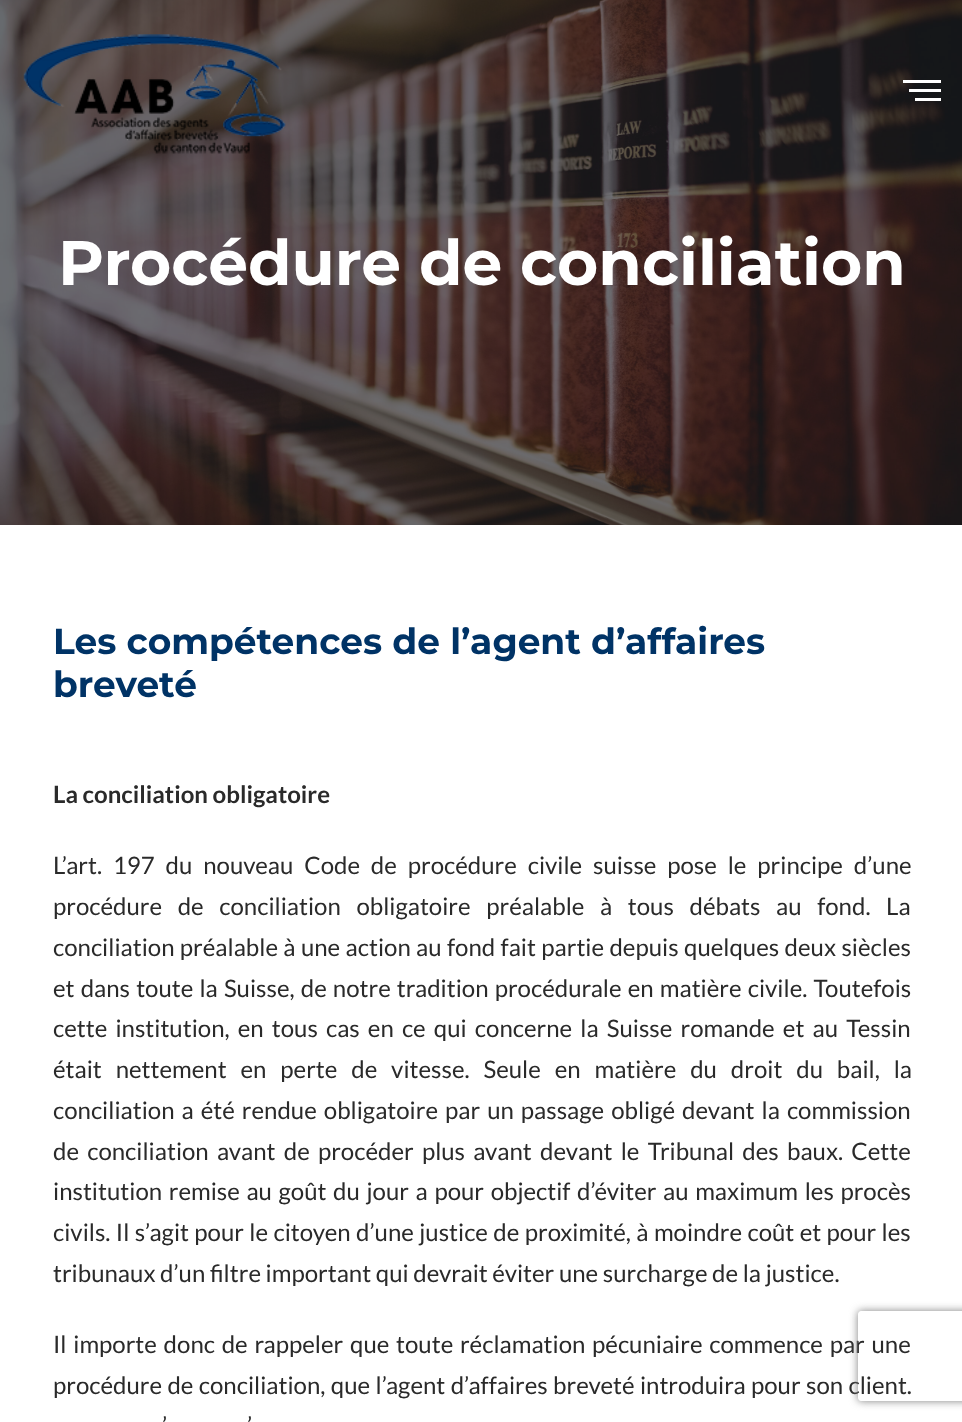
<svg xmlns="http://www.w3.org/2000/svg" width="962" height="1422">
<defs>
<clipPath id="clip1"><path d="M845 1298h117v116h-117zm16 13h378c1.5 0 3 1.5 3 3v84c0 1.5-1.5 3-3 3h-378c-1.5 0-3-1.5-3-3v-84c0-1.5 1.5-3 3-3z" clip-rule="evenodd"/></clipPath>
</defs>
<rect width="100%" height="100%" fill="#fff"/>
<image x="0" y="0" width="962" height="525" href="media/2.png"/>
<image x="23" y="34" width="263" height="120" href="media/1.png"/>
<rect x="903" y="80" width="38" height="3" fill="#fff"/>
<rect x="909" y="89" width="32" height="3" fill="#fff"/>
<rect x="915" y="98" width="26" height="3" fill="#fff"/>
<text x="58" y="285" style="font-family:Montserrat;font-size:63px;font-weight:bold;fill:#fff">Procédure de conciliation</text>
<text x="53" y="654" style="font-family:Montserrat;font-size:36px;font-weight:bold;fill:#036">Les compétences de l’agent d’affaires</text>
<text x="53" y="697" style="font-family:Montserrat;font-size:36px;font-weight:bold;fill:#036">breveté</text>
<text x="53" y="803" style="font-family:Lato;font-size:24px;font-weight:bold;fill:#2a2a2a">La conciliation obligatoire</text>
<text x="53" y="874" word-spacing="6.25" style="font-family:Lato;font-size:24px;fill:#2a2a2a">L’art. 197 du nouveau Code de procédure civile suisse pose le principe d’une</text>
<text x="53" y="915" word-spacing="11" style="font-family:Lato;font-size:24px;fill:#2a2a2a">procédure de conciliation obligatoire préalable à tous débats au fond. La</text>
<text x="53" y="956" word-spacing="0.75" style="font-family:Lato;font-size:24px;fill:#2a2a2a">conciliation préalable à une action au fond fait partie depuis quelques deux siècles</text>
<text x="53" y="997" word-spacing="1.5" style="font-family:Lato;font-size:24px;fill:#2a2a2a">et dans toute la Suisse, de notre tradition procédurale en matière civile. Toutefois</text>
<text x="53" y="1037" word-spacing="3.5" style="font-family:Lato;font-size:24px;fill:#2a2a2a">cette institution, en tous cas en ce qui concerne la Suisse romande et au Tessin</text>
<text x="53" y="1078" word-spacing="9.25" style="font-family:Lato;font-size:24px;fill:#2a2a2a">était nettement en perte de vitesse. Seule en matière du droit du bail, la</text>
<text x="53" y="1119" word-spacing="2.4" style="font-family:Lato;font-size:24px;fill:#2a2a2a">conciliation a été rendue obligatoire par un passage obligé devant la commission</text>
<text x="53" y="1160" word-spacing="3.6" style="font-family:Lato;font-size:24px;fill:#2a2a2a">de conciliation avant de procéder plus avant devant le Tribunal des baux. Cette</text>
<text x="53" y="1200" word-spacing="2" style="font-family:Lato;font-size:24px;fill:#2a2a2a">institution remise au goût du jour a pour objectif d’éviter au maximum les procès</text>
<text x="53" y="1241" word-spacing="0.75" style="font-family:Lato;font-size:24px;fill:#2a2a2a">civils. Il s’agit pour le citoyen d’une justice de proximité, à moindre coût et pour les</text>
<text x="53" y="1282" style="font-family:Lato;font-size:24px;fill:#2a2a2a">tribunaux d’un filtre important qui devrait éviter une surcharge de la justice.</text>
<text x="53" y="1353" word-spacing="2.1" style="font-family:Lato;font-size:24px;fill:#2a2a2a">Il importe donc de rappeler que toute réclamation pécuniaire commence par une</text>
<text x="53" y="1394" word-spacing="0.75" style="font-family:Lato;font-size:24px;fill:#2a2a2a">procédure de conciliation, que l’agent d’affaires breveté introduira pour son client.</text>
<text x="162" y="1434" word-spacing="4" style="font-family:Lato;font-size:24px;fill:#2a2a2a">’</text>
<text x="247" y="1434" word-spacing="4" style="font-family:Lato;font-size:24px;fill:#2a2a2a">’</text>
<g clip-path="url(#clip1)">
<rect x="858" y="1311" width="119" height="90" rx="3" fill="#808080" filter="blur(4px)"/>
</g>
</svg>
